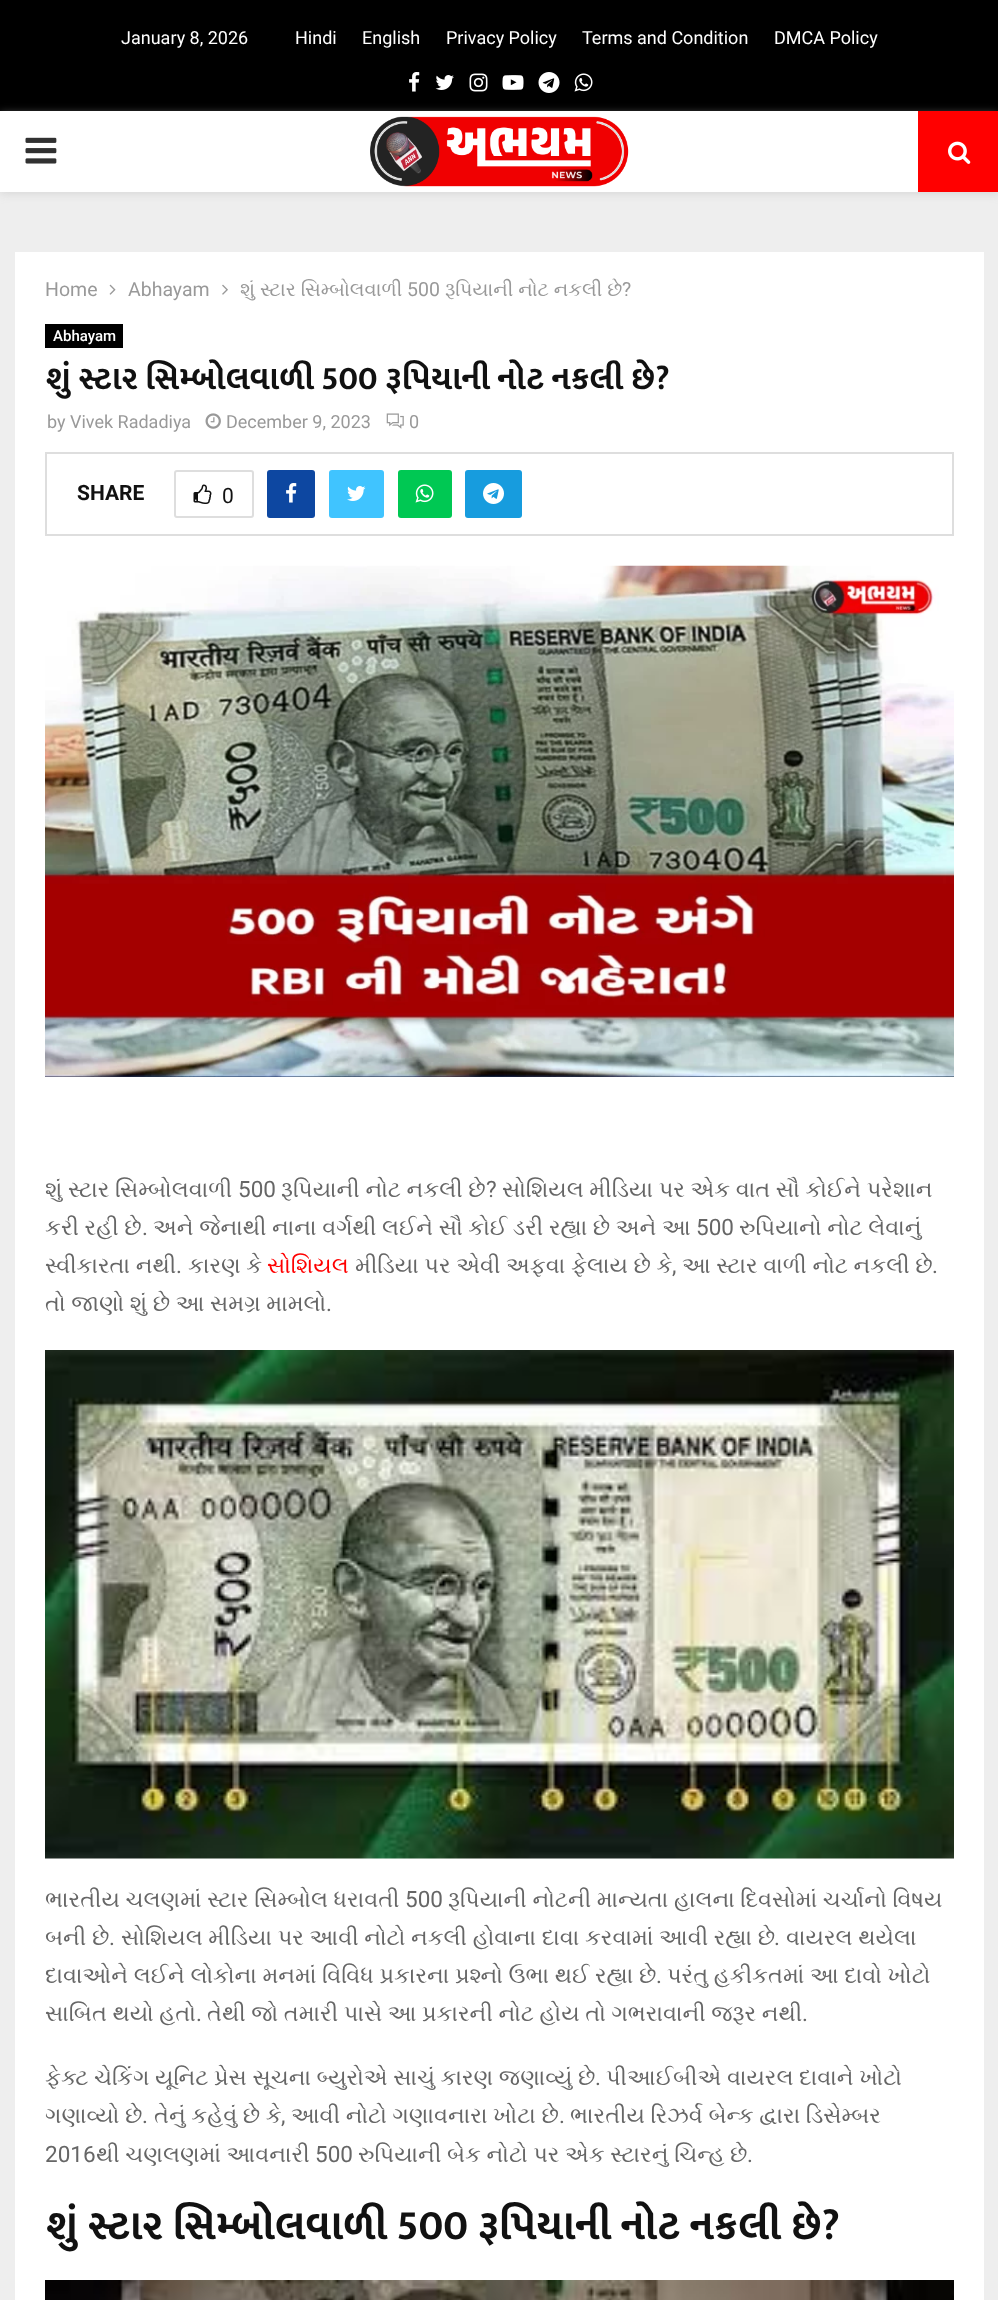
<svg xmlns="http://www.w3.org/2000/svg" width="998" height="2300">
<rect width="100%" height="100%" fill="#eee"/>
<rect width="998" height="111" fill="#000"/>
<text x="121" y="44" style="font-family:Roboto;font-size:18px;fill:#fff">January 8, 2026</text>
<text x="295" y="44" style="font-family:Roboto;font-size:18px;fill:#fff">Hindi</text>
<text x="362" y="44" style="font-family:Roboto;font-size:18px;fill:#fff">English</text>
<text x="446" y="44" style="font-family:Roboto;font-size:18px;fill:#fff">Privacy Policy</text>
<text x="582" y="44" style="font-family:Roboto;font-size:18px;fill:#fff">Terms and Condition</text>
<text x="774" y="44" style="font-family:Roboto;font-size:18px;fill:#fff">DMCA Policy</text>
<image x="409" y="72" width="11" height="20" href="media/1.png"/>
<image x="435" y="75" width="19" height="15" href="media/2.png"/>
<image x="469" y="73" width="19" height="19" href="media/3.png"/>
<image x="502" y="75" width="22" height="15" href="media/4.png"/>
<image x="538" y="72" width="22" height="21" href="media/5.png"/>
<image x="574" y="73" width="19" height="19" href="media/6.png"/>
<rect y="113" width="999" height="81" fill="#bebebe75" filter="blur(4px)"/>
<rect y="111" width="918" height="81" fill="#fff"/>
<image x="25" y="137" width="32" height="27" href="media/7.png"/>
<image x="370" y="116" width="259" height="71" href="media/8.png"/>
<rect x="918" y="111" width="80" height="81" fill="#f00"/>
<image x="948" y="141" width="23" height="23" href="media/9.png"/>
<rect x="15" y="252" width="969" height="2048" fill="#fff"/>
<text x="45" y="296" style="font-family:Roboto;font-size:19.5px;fill:#999">Home</text>
<image x="109" y="284" width="7" height="11" href="media/10.png"/>
<text x="128" y="296" style="font-family:Roboto;font-size:19.5px;fill:#999">Abhayam</text>
<image x="222" y="284" width="6" height="11" href="media/11.png"/>
<text x="240" y="296" style="font-family:FreeSerif;font-size:19.5px;fill:#999">શું સ્ટાર સિમ્બોલવાળી</text>
<text x="407" y="296" style="font-family:Roboto;font-size:19.5px;fill:#999">500</text>
<text x="445" y="296" style="font-family:FreeSerif;font-size:19.5px;fill:#999">રૂપિયાની નોટ નકલી છે</text>
<text x="622" y="296" style="font-family:Roboto;font-size:19.5px;fill:#999">?</text>
<rect x="45" y="324" width="78" height="24" fill="#000"/>
<text x="53" y="341" style="font-family:Roboto;font-size:15px;font-weight:500;fill:#fff">Abhayam</text>
<text x="45" y="389" style="font-family:Mukta Vaani;font-size:33px;font-weight:bold;fill:#111">શું સ્ટાર સિમ્બોલવાળી 500 રૂપિયાની નોટ નકલી છે?</text>
<text x="47" y="428" style="font-family:Roboto;font-size:18px;fill:#999">by Vivek Radadiya</text>
<image x="205" y="413" width="16" height="16" href="media/12.png"/>
<text x="226" y="428" style="font-family:Roboto;font-size:18px;fill:#999">December 9, 2023</text>
<image x="386" y="413" width="18" height="16" href="media/13.png"/>
<text x="409" y="428" style="font-family:Roboto;font-size:18px;fill:#999">0</text>
<rect x="46" y="453" width="907" height="82" fill="none" stroke="#dedede" stroke-width="2"/>
<text x="77" y="500" style="font-family:Roboto;font-size:21px;font-weight:bold;fill:#111">SHARE</text>
<rect x="175" y="471" width="78" height="46" rx="2" fill="none" stroke="#dedede" stroke-width="2"/>
<image x="193" y="484" width="19" height="20" href="media/14.png"/>
<text x="222" y="503" style="font-family:Roboto;font-size:21px;fill:#111">0</text>
<rect x="267" y="470" width="48" height="48" rx="3" fill="#0d47a1"/>
<image x="286" y="483" width="11" height="20" href="media/15.png"/>
<rect x="329" y="470" width="55" height="48" rx="3" fill="#40c4ff"/>
<image x="347" y="486" width="19" height="15" href="media/16.png"/>
<rect x="398" y="470" width="54" height="48" rx="3" fill="#00c853"/>
<image x="415" y="484" width="19" height="19" href="media/17.png"/>
<rect x="465" y="470" width="57" height="48" rx="3" fill="#179cde"/>
<image x="483" y="483" width="21" height="21" href="media/18.png"/>
<image x="45" y="565" width="909" height="512" href="media/19.png"/>
<text x="45" y="1197" style="font-family:FreeSerif;font-size:22.5px;fill:#666">શું સ્ટાર સિમ્બોલવાળી</text>
<text x="238" y="1197" style="font-family:Roboto;font-size:22.5px;fill:#666">500</text>
<text x="281" y="1197" style="font-family:FreeSerif;font-size:22.5px;fill:#666">રૂપિયાની નોટ નકલી છે</text>
<text x="486" y="1197" style="font-family:Roboto;font-size:22.5px;fill:#666">?</text>
<text x="502" y="1197" style="font-family:FreeSerif;font-size:22.5px;fill:#666">સોશિયલ મીડિયા પર એક વાત સૌ કોઈને પરેશાન</text>
<text x="45" y="1235" style="font-family:FreeSerif;font-size:22.5px;fill:#666">કરી રહી છે</text>
<text x="142" y="1235" style="font-family:Roboto;font-size:22.5px;fill:#666">.</text>
<text x="153" y="1235" style="font-family:FreeSerif;font-size:22.5px;fill:#666">અને જેનાથી નાના વર્ગથી લઈને સૌ કોઈ ડરી રહ્યા છે અને આ</text>
<text x="696" y="1235" style="font-family:Roboto;font-size:22.5px;fill:#666">500</text>
<text x="739" y="1235" style="font-family:FreeSerif;font-size:22.5px;fill:#666">રુપિયાનો નોટ લેવાનું</text>
<text x="45" y="1273" style="font-family:FreeSerif;font-size:22.5px;fill:#666">સ્વીકારતા નથી</text>
<text x="176" y="1273" style="font-family:Roboto;font-size:22.5px;fill:#666">.</text>
<text x="188" y="1273" style="font-family:FreeSerif;font-size:22.5px;fill:#666">કારણ કે</text>
<text x="267" y="1273" style="font-family:FreeSerif;font-size:22.5px;fill:#f00">સોશિયલ</text>
<text x="355" y="1273" style="font-family:FreeSerif;font-size:22.5px;fill:#666">મીડિયા પર એવી અફવા ફેલાય છે કે</text>
<text x="672" y="1273" style="font-family:Roboto;font-size:22.5px;fill:#666">,</text>
<text x="682" y="1273" style="font-family:FreeSerif;font-size:22.5px;fill:#666">આ સ્ટાર વાળી નોટ નકલી છે</text>
<text x="932" y="1273" style="font-family:Roboto;font-size:22.5px;fill:#666">.</text>
<text x="45" y="1311" style="font-family:FreeSerif;font-size:22.5px;fill:#666">તો જાણો શું છે આ સમગ્ર મામલો</text>
<text x="326" y="1311" style="font-family:Roboto;font-size:22.5px;fill:#666">.</text>
<image x="45" y="1350" width="909" height="509" href="media/20.png"/>
<text x="45" y="1907" style="font-family:FreeSerif;font-size:22.5px;fill:#666">ભારતીય ચલણમાં સ્ટાર સિમ્બોલ ધરાવતી</text>
<text x="405" y="1907" style="font-family:Roboto;font-size:22.5px;fill:#666">500</text>
<text x="448" y="1907" style="font-family:FreeSerif;font-size:22.5px;fill:#666">રૂપિયાની નોટની માન્યતા હાલના દિવસોમાં ચર્ચાનો વિષય</text>
<text x="45" y="1945" style="font-family:FreeSerif;font-size:22.5px;fill:#666">બની છે</text>
<text x="109" y="1945" style="font-family:Roboto;font-size:22.5px;fill:#666">.</text>
<text x="121" y="1945" style="font-family:FreeSerif;font-size:22.5px;fill:#666">સોશિયલ મીડિયા પર આવી નોટો નકલી હોવાના દાવા કરવામાં આવી રહ્યા છે</text>
<text x="774" y="1945" style="font-family:Roboto;font-size:22.5px;fill:#666">.</text>
<text x="786" y="1945" style="font-family:FreeSerif;font-size:22.5px;fill:#666">વાયરલ થયેલા</text>
<text x="45" y="1983" style="font-family:FreeSerif;font-size:22.5px;fill:#666">દાવાઓને લઈને લોકોના મનમાં વિવિધ પ્રકારના પ્રશ્નો ઉભા થઈ રહ્યા છે</text>
<text x="656" y="1983" style="font-family:Roboto;font-size:22.5px;fill:#666">.</text>
<text x="667" y="1983" style="font-family:FreeSerif;font-size:22.5px;fill:#666">પરંતુ હકીકતમાં આ દાવો ખોટો</text>
<text x="45" y="2021" style="font-family:FreeSerif;font-size:22.5px;fill:#666">સાબિત થયો હતો</text>
<text x="196" y="2021" style="font-family:Roboto;font-size:22.5px;fill:#666">.</text>
<text x="207" y="2021" style="font-family:FreeSerif;font-size:22.5px;fill:#666">તેથી જો તમારી પાસે આ પ્રકારની નોટ હોય તો ગભરાવાની જરૂર નથી</text>
<text x="802" y="2021" style="font-family:Roboto;font-size:22.5px;fill:#666">.</text>
<text x="45" y="2085" style="font-family:FreeSerif;font-size:22.5px;fill:#666">ફેક્ટ ચેકિંગ યૂનિટ પ્રેસ સૂચના બ્યુરોએ સાચું કારણ જણાવ્યું છે</text>
<text x="595" y="2085" style="font-family:Roboto;font-size:22.5px;fill:#666">.</text>
<text x="606" y="2085" style="font-family:FreeSerif;font-size:22.5px;fill:#666">પીઆઈબીએ વાયરલ દાવાને ખોટો</text>
<text x="45" y="2123" style="font-family:FreeSerif;font-size:22.5px;fill:#666">ગણાવ્યો છે</text>
<text x="142" y="2123" style="font-family:Roboto;font-size:22.5px;fill:#666">.</text>
<text x="154" y="2123" style="font-family:FreeSerif;font-size:22.5px;fill:#666">તેનું કહેવું છે કે</text>
<text x="291" y="2123" style="font-family:FreeSerif;font-size:22.5px;fill:#666">આવી નોટો ગણાવનારા ખોટા છે</text>
<text x="570" y="2123" style="font-family:FreeSerif;font-size:22.5px;fill:#666">ભારતીય રિઝર્વ બેન્ક દ્વારા ડિસેમ્બર</text>
<text x="281" y="2123" style="font-family:Roboto;font-size:22.5px;fill:#666">,</text>
<text x="559" y="2123" style="font-family:Roboto;font-size:22.5px;fill:#666">.</text>
<text x="45" y="2162" style="font-family:Roboto;font-size:22.5px;fill:#666">2016</text>
<text x="96" y="2162" style="font-family:FreeSerif;font-size:22.5px;fill:#666">થી ચણલણમાં આવનારી</text>
<text x="315" y="2162" style="font-family:Roboto;font-size:22.5px;fill:#666">500</text>
<text x="358" y="2162" style="font-family:FreeSerif;font-size:22.5px;fill:#666">રુપિયાની બેક નોટો પર એક સ્ટારનું ચિન્હ છે</text>
<text x="747" y="2162" style="font-family:Roboto;font-size:22.5px;fill:#666">.</text>
<text x="45" y="2239" style="font-family:Mukta Vaani;font-size:42px;font-weight:bold;fill:#111">શું સ્ટાર સિમ્બોલવાળી 500 રૂપિયાની નોટ નકલી છે?</text>
<image x="45" y="2280" width="909" height="20" href="media/21.png"/>
</svg>
